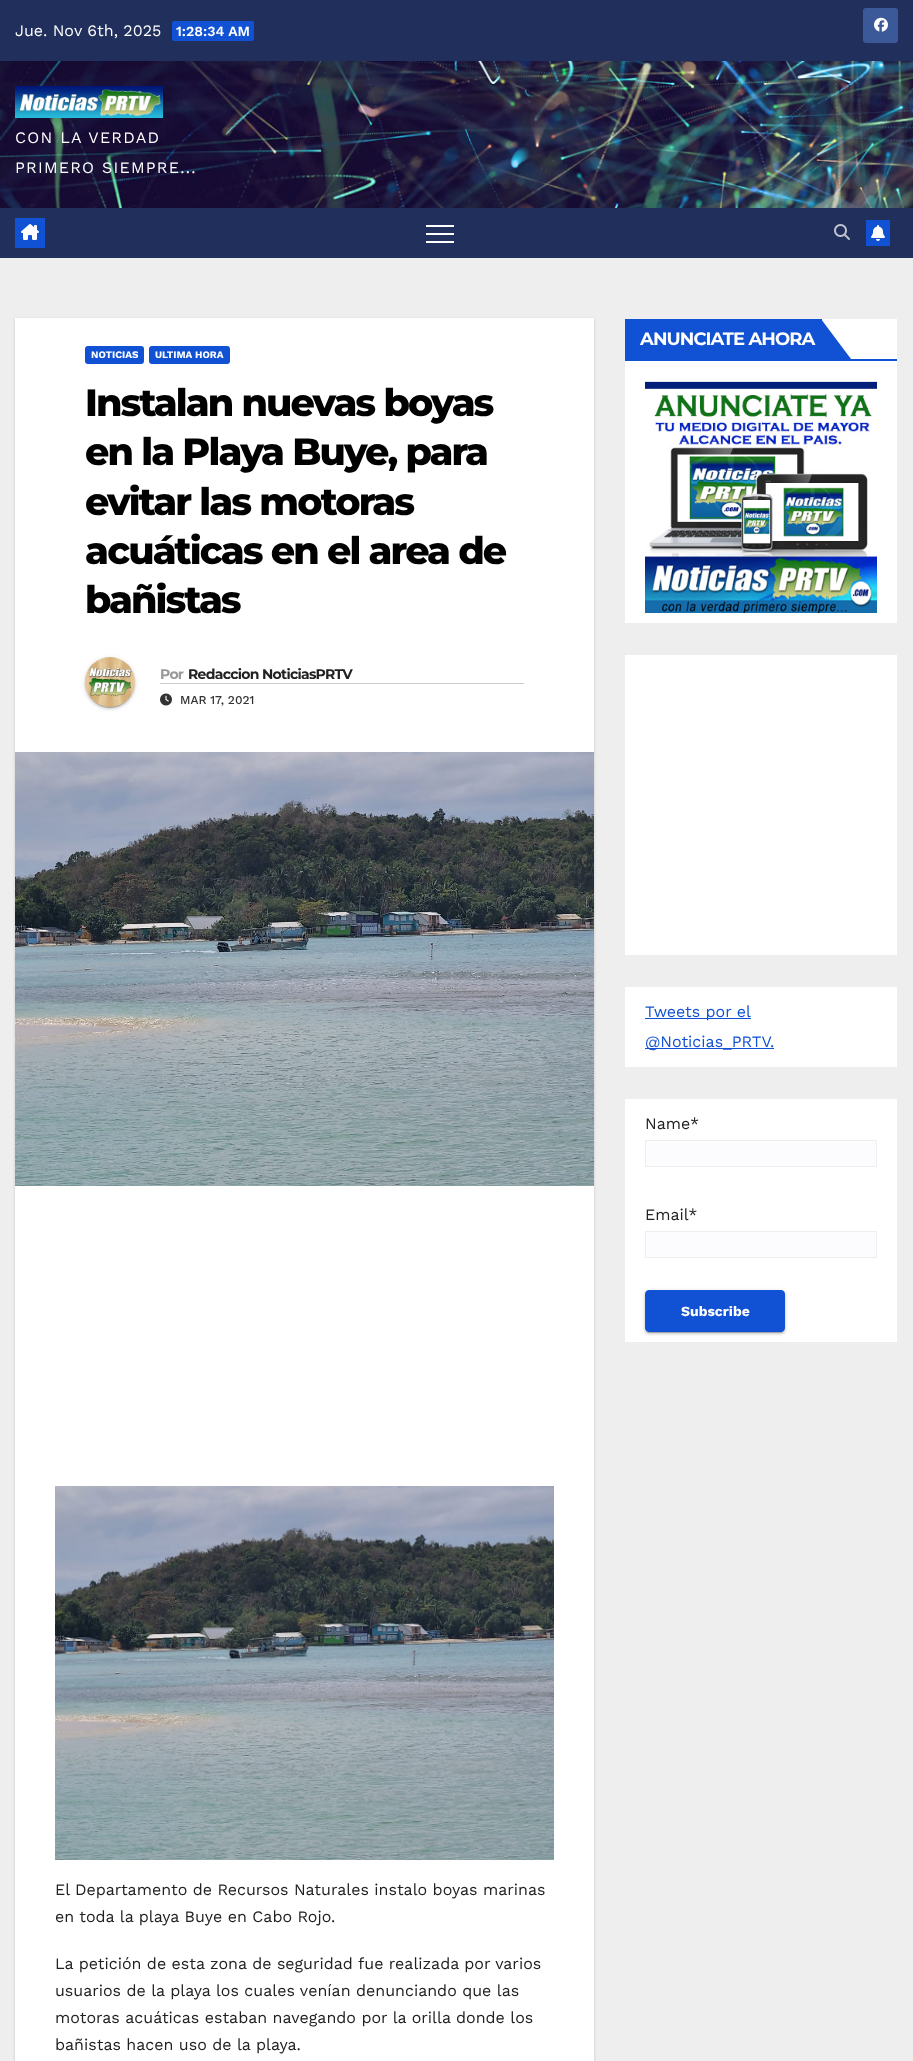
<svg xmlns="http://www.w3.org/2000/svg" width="913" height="2061">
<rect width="100%" height="100%" fill="#eee"/>
<rect width="913" height="61" fill="#202f5b"/>
<text x="15" y="36" style="font-family:Work Sans;font-size:16px;fill:#fff">Jue. Nov 6th, 2025</text>
<rect x="172" y="21" width="82" height="20" rx="2" fill="#1151d3"/>
<text x="176" y="36" style="font-family:Work Sans;font-size:14px;font-weight:600;fill:#fff">1:28:34 AM</text>
<rect x="863" y="8" width="35" height="35" rx="3" fill="#3b5998"/>
<image x="874" y="17" width="14" height="15" href="media/1.png"/>
<image x="0" y="61" width="913" height="147" href="media/2.png"/>
<image x="15" y="86" width="148" height="32" href="media/3.png"/>
<text x="15" y="143" style="font-family:Work Sans;font-size:16px;letter-spacing:1.25px;fill:#fff">CON LA VERDAD</text>
<text x="15" y="173" style="font-family:Work Sans;font-size:16px;letter-spacing:1.25px;fill:#fff">PRIMERO SIEMPRE...</text>
<rect y="208" width="913" height="50" fill="#202f5b"/>
<rect x="15" y="218" width="30" height="30" fill="#1151d3"/>
<image x="21" y="224" width="18" height="16" href="media/4.png"/>
<rect x="426" y="225" width="28" height="2" fill="#fff"/>
<rect x="426" y="233" width="28" height="2" fill="#fff"/>
<rect x="426" y="241" width="28" height="2" fill="#fff"/>
<image x="834" y="224" width="16" height="16" href="media/5.png"/>
<rect x="866" y="220" width="24" height="26" fill="#1151d3"/>
<image x="871" y="225" width="14" height="16" href="media/6.png"/>
<rect x="15" y="319" width="579" height="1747" fill="#00000026" filter="blur(1.5px)"/>
<rect x="15" y="318" width="579" height="1743" fill="#fff"/>
<rect x="85" y="346" width="59" height="18" rx="3" fill="#1151d3"/>
<text x="91" y="358" style="font-family:Work Sans;font-size:10px;font-weight:bold;fill:#fff">NOTICIAS</text>
<rect x="149" y="346" width="81" height="18" rx="3" fill="#1151d3"/>
<text x="155" y="358" style="font-family:Work Sans;font-size:10px;font-weight:bold;fill:#fff">ULTIMA HORA</text>
<text x="85" y="416" style="font-family:Montserrat;font-size:38px;font-weight:800;letter-spacing:-1.9px;fill:#000">Instalan nuevas boyas</text>
<text x="85" y="465" style="font-family:Montserrat;font-size:38px;font-weight:800;letter-spacing:-1.9px;fill:#000">en la Playa Buye, para</text>
<text x="85" y="515" style="font-family:Montserrat;font-size:38px;font-weight:800;letter-spacing:-1.9px;fill:#000">evitar las motoras</text>
<text x="85" y="564" style="font-family:Montserrat;font-size:38px;font-weight:800;letter-spacing:-1.9px;fill:#000">acuáticas en el area de</text>
<text x="85" y="613" style="font-family:Montserrat;font-size:38px;font-weight:800;letter-spacing:-1.9px;fill:#000">bañistas</text>
<rect x="85" y="658" width="50" height="50" rx="25" fill="#0000001f" filter="blur(2.5px)"/>
<rect x="87" y="662" width="46" height="46" rx="23" fill="#00000033" filter="blur(0.5px)"/>
<rect x="85" y="659" width="50" height="50" rx="25" fill="#00000024" filter="blur(1px)"/>
<image x="85" y="657" width="50" height="50" href="media/7.png"/>
<rect x="160" y="683" width="364" height="1" fill="#ccc"/>
<text x="160" y="679" style="font-family:Montserrat;font-size:14px;font-weight:bold;letter-spacing:-0.7px;fill:#999">Por</text>
<text x="188" y="679" style="font-family:Montserrat;font-size:14px;font-weight:bold;letter-spacing:-0.7px;fill:#212121">Redaccion NoticiasPRTV</text>
<image x="160" y="693" width="12" height="13" href="media/8.png"/>
<text x="180" y="704" style="font-family:Work Sans;font-size:12px;font-weight:500;fill:#333">MAR 17, 2021</text>
<image x="15" y="752" width="579" height="434" href="media/9.png"/>
<image x="55" y="1486" width="499" height="374" href="media/10.png"/>
<text x="55" y="1895" style="font-family:Work Sans;font-size:16px;fill:#212121">El Departamento de Recursos Naturales instalo boyas marinas</text>
<text x="55" y="1922" style="font-family:Work Sans;font-size:16px;fill:#212121">en toda la playa Buye en Cabo Rojo.</text>
<text x="55" y="1969" style="font-family:Work Sans;font-size:16px;fill:#212121">La petición de esta zona de seguridad</text>
<text x="358" y="1969" style="font-family:Work Sans;font-size:16px;fill:#212121">fue realizada por varios</text>
<text x="55" y="1996" style="font-family:Work Sans;font-size:16px;fill:#212121">usuarios de la playa los cuales venían denunciando que las</text>
<text x="55" y="2023" style="font-family:Work Sans;font-size:16px;fill:#212121">motoras acuáticas estaban navegando por la orilla donde los</text>
<text x="55" y="2050" style="font-family:Work Sans;font-size:16px;fill:#212121">bañistas hacen uso de la playa.</text>
<rect x="625" y="319" width="272" height="304" fill="#fff"/>
<rect x="625" y="359" width="272" height="2" fill="#1151d3"/>
<rect x="625" y="319" width="197" height="40" fill="#1151d3"/>
<text x="640" y="345" style="font-family:Montserrat;font-size:18px;font-weight:bold;letter-spacing:-0.9px;fill:#fff">ANUNCIATE AHORA</text>
<path d="M821 359v-40l30 40z" fill="#1151d3"/>
<image x="645" y="381" width="232" height="232" href="media/11.png"/>
<rect x="625" y="655" width="272" height="300" fill="#fff"/>
<rect x="625" y="987" width="272" height="80" fill="#fff"/>
<rect x="645" y="1018" width="106" height="1" fill="#1151d3"/>
<text x="645" y="1017" style="font-family:Work Sans;font-size:16px;fill:#1151d3">Tweets por el</text>
<rect x="645" y="1048" width="129" height="1" fill="#1151d3"/>
<text x="645" y="1047" style="font-family:Work Sans;font-size:16px;fill:#1151d3">@Noticias_PRTV.</text>
<rect x="625" y="1099" width="272" height="243" fill="#fff"/>
<text x="645" y="1129" style="font-family:Work Sans;font-size:16px;fill:#212121">Name*</text>
<rect x="645.5" y="1140.5" width="231" height="26" fill="#fcfcff" stroke="#eee"/>
<text x="645" y="1220" style="font-family:Work Sans;font-size:16px;fill:#212121">Email*</text>
<rect x="645.5" y="1231.5" width="231" height="26" fill="#fcfcff" stroke="#eee"/>
<rect x="645" y="1291" width="140" height="42" rx="4" fill="#0000001f" filter="blur(2.5px)"/>
<rect x="647" y="1295" width="136" height="38" rx="2" fill="#00000033" filter="blur(0.5px)"/>
<rect x="645" y="1292" width="140" height="42" rx="4" fill="#00000024" filter="blur(1px)"/>
<rect x="645.5" y="1290.5" width="139" height="41" rx="3.5" fill="#1151d3" stroke="#1151d3"/>
<text x="681" y="1316" style="font-family:Work Sans;font-size:14px;font-weight:bold;fill:#fff">Subscribe</text>
</svg>
